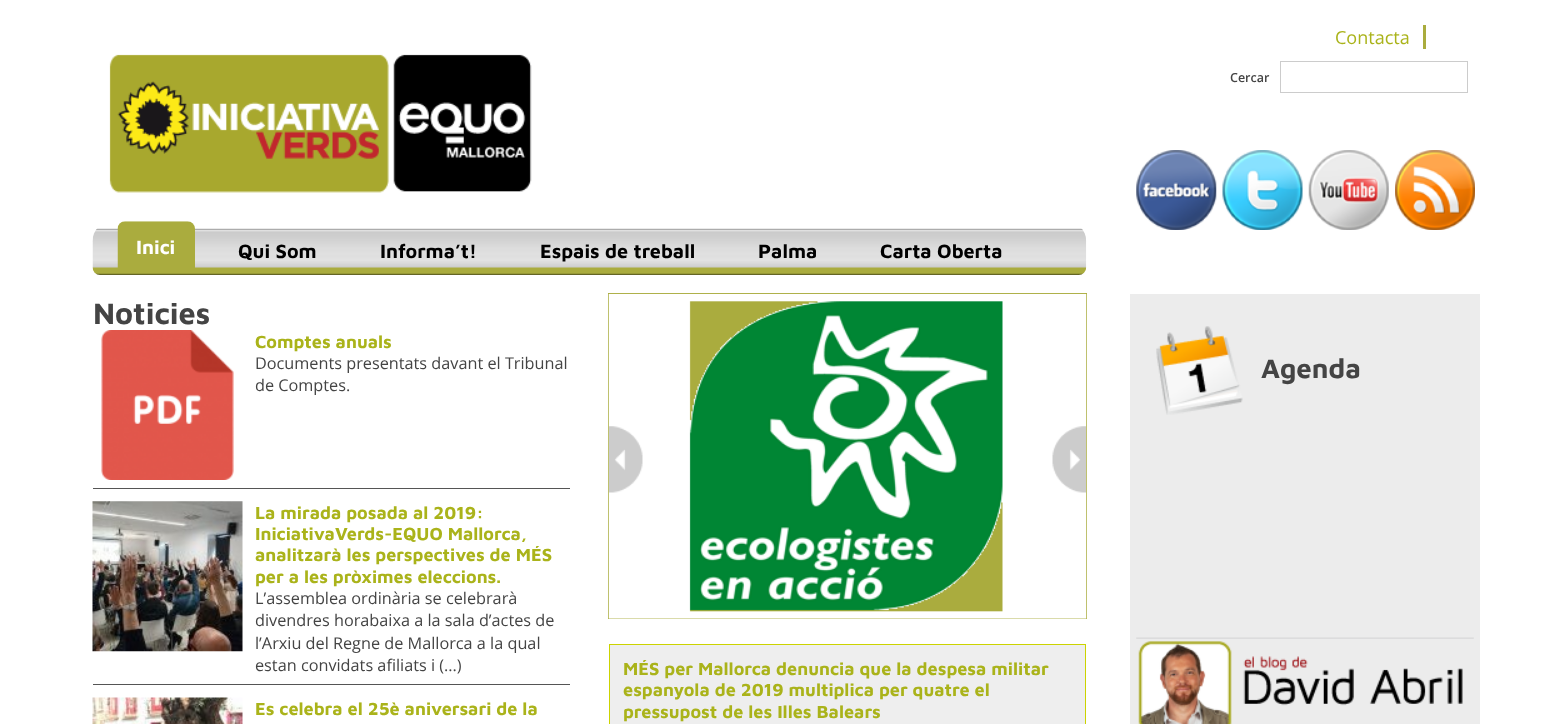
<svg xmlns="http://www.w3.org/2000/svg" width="1559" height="724">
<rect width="100%" height="100%" fill="#fff"/>
<rect x="1423" y="25" width="3" height="24" fill="#aaac3e"/>
<text x="1335" y="44" style="font-family:Open Sans;font-size:18.05px;fill:#aab31a">Contacta</text>
<image x="109" y="54" width="423" height="139" href="media/1.png"/>
<text x="1230" y="82" style="font-family:Open Sans;font-size:12.5px;font-weight:600;fill:#444">Cercar</text>
<rect x="1280.5" y="61.5" width="187" height="31" fill="none" stroke="#ccc"/>
<image x="1136" y="150" width="81" height="80" href="media/2.png"/>
<image x="1222" y="150" width="81" height="80" href="media/3.png"/>
<image x="1308" y="150" width="81" height="80" href="media/4.png"/>
<image x="1395" y="150" width="80" height="80" href="media/5.png"/>
<image x="92" y="228" width="995" height="47" href="media/6.png"/>
<image x="117" y="221" width="78" height="47" href="media/7.png"/>
<text x="136" y="254" style="font-family:Maven Pro;font-size:19.75px;font-weight:bold;fill:#fff">Inici</text>
<text x="238" y="258" style="font-family:Maven Pro;font-size:19.75px;font-weight:bold;fill:#000">Qui Som</text>
<text x="380" y="258" style="font-family:Maven Pro;font-size:19.75px;font-weight:bold;fill:#000">Informa’t!</text>
<text x="540" y="258" style="font-family:Maven Pro;font-size:19.75px;font-weight:bold;fill:#000">Espais de treball</text>
<text x="758" y="258" style="font-family:Maven Pro;font-size:19.75px;font-weight:bold;fill:#000">Palma</text>
<text x="880" y="258" style="font-family:Maven Pro;font-size:19.75px;font-weight:bold;fill:#000">Carta Oberta</text>
<text x="93" y="324" style="font-family:Maven Pro;font-size:30.5px;font-weight:bold;fill:#444">Noticies</text>
<rect x="93" y="488" width="477" height="1" fill="#555"/>
<image x="101" y="330" width="133" height="150" href="media/8.png"/>
<text x="255" y="348" style="font-family:Maven Pro;font-size:18.05px;font-weight:bold;fill:#aab31a">Comptes anuals</text>
<text x="255" y="369" style="font-family:Open Sans;font-size:16.25px;fill:#444">Documents presentats davant el Tribunal</text>
<text x="255" y="391" style="font-family:Open Sans;font-size:16.25px;fill:#444">de Comptes.</text>
<rect x="93" y="684" width="477" height="1" fill="#555"/>
<image x="92" y="501" width="151" height="151" href="media/9.png"/>
<text x="255" y="519" style="font-family:Maven Pro;font-size:18.05px;font-weight:bold;fill:#aab31a">La mirada posada al 2019:</text>
<text x="255" y="540" style="font-family:Maven Pro;font-size:18.05px;font-weight:bold;fill:#aab31a">IniciativaVerds-EQUO Mallorca,</text>
<text x="255" y="561" style="font-family:Maven Pro;font-size:18.05px;font-weight:bold;fill:#aab31a">analitzarà les perspectives de MÉS</text>
<text x="255" y="583" style="font-family:Maven Pro;font-size:18.05px;font-weight:bold;fill:#aab31a">per a les pròximes eleccions.</text>
<text x="255" y="604" style="font-family:Open Sans;font-size:16.25px;fill:#444">L’assemblea ordinària se celebrarà</text>
<text x="255" y="626" style="font-family:Open Sans;font-size:16.25px;fill:#444">divendres horabaixa a la sala d’actes de</text>
<text x="255" y="649" style="font-family:Open Sans;font-size:16.25px;fill:#444">l’Arxiu del Regne de Mallorca a la qual</text>
<text x="255" y="671" style="font-family:Open Sans;font-size:16.25px;fill:#444">estan convidats afiliats i (...)</text>
<image x="92" y="697" width="151" height="27" href="media/10.png"/>
<text x="255" y="715" style="font-family:Maven Pro;font-size:18.05px;font-weight:bold;fill:#aab31a">Es celebra el 25è aniversari de la</text>
<rect x="608" y="293" width="479" height="326" fill="#aaac3e"/>
<image x="608" y="293" width="479" height="326" href="media/11.png"/>
<image x="609" y="426" width="34" height="67" href="media/12.png"/>
<image x="1052" y="426" width="34" height="67" href="media/13.png"/>
<rect x="609.5" y="644.5" width="476" height="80" fill="#eee" stroke="#cbd300"/>
<text x="623" y="675" style="font-family:Maven Pro;font-size:18.05px;font-weight:bold;fill:#aab31a">MÉS per Mallorca denuncia que la despesa militar</text>
<text x="623" y="696" style="font-family:Maven Pro;font-size:18.05px;font-weight:bold;fill:#aab31a">espanyola de 2019 multiplica per quatre el</text>
<text x="623" y="718" style="font-family:Maven Pro;font-size:18.05px;font-weight:bold;fill:#aab31a">pressupost de les Illes Balears</text>
<rect x="1130" y="294" width="350" height="430" fill="#ececec"/>
<image x="1156" y="326" width="87" height="89" href="media/14.png"/>
<text x="1261" y="378" style="font-family:Maven Pro;font-size:27.5px;font-weight:bold;fill:#444">Agenda</text>
<image x="1136" y="637" width="338" height="87" href="media/15.png"/>
</svg>
